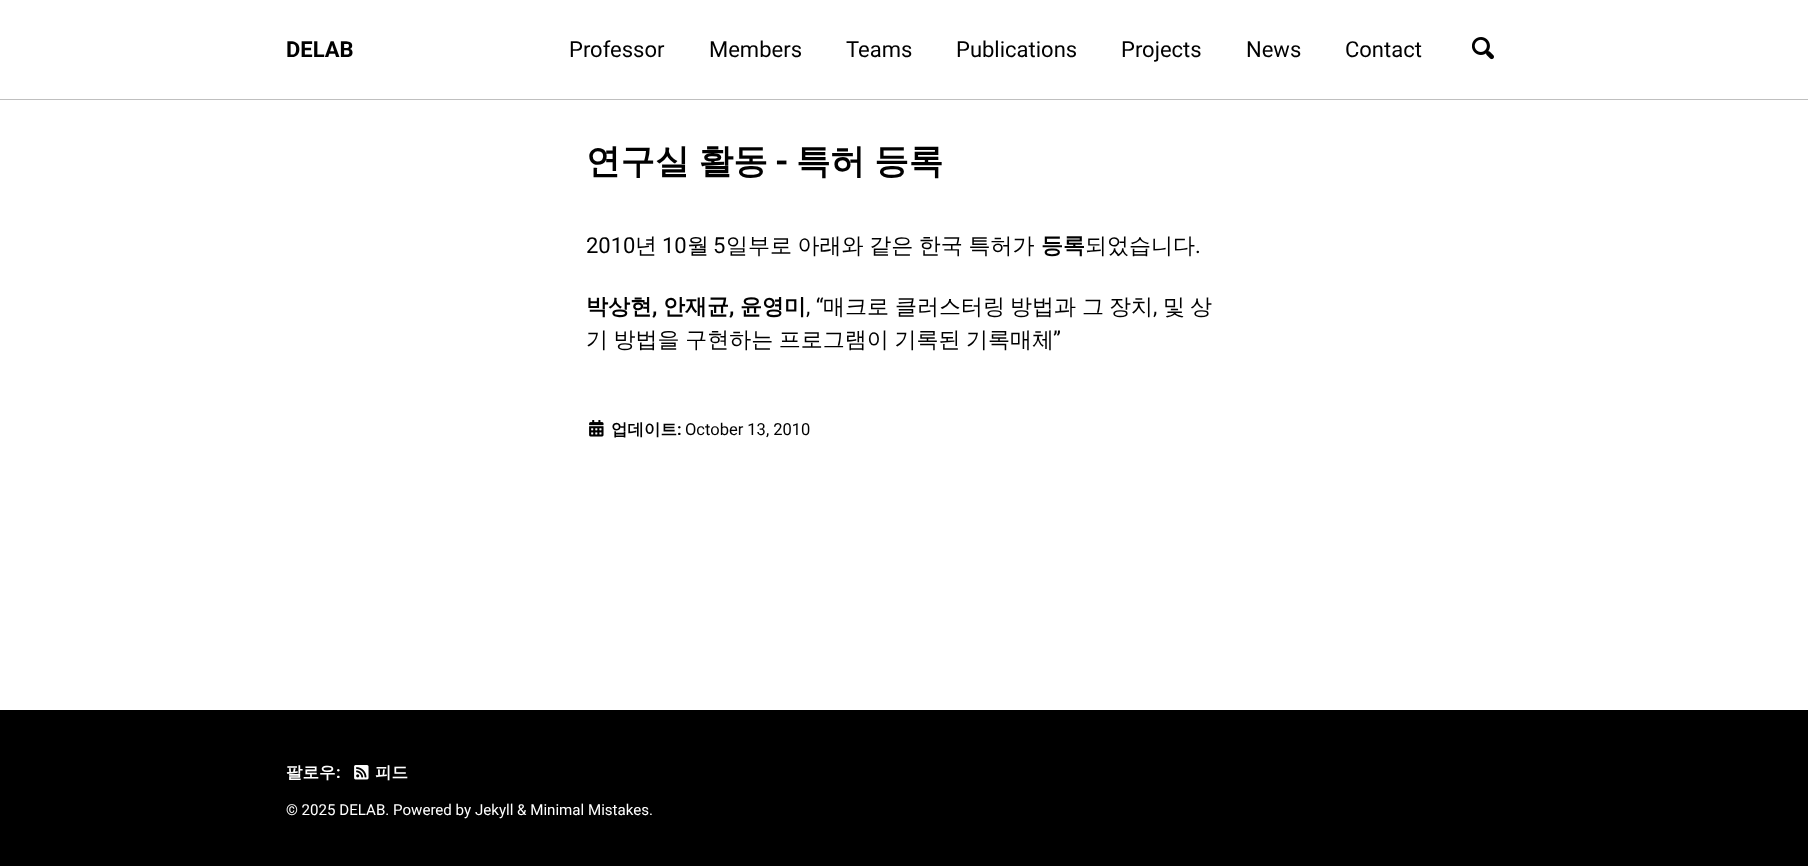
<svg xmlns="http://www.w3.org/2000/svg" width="1808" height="866">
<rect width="100%" height="100%" fill="#fff"/>
<rect y="99" width="1808" height="1" fill="#bfbfbf"/>
<text x="286" y="57" style="font-family:Roboto;font-size:22px;font-weight:bold;fill:#000">DELAB</text>
<text x="569" y="57" style="font-family:Roboto;font-size:22px;fill:#000">Professor</text>
<text x="709" y="57" style="font-family:Roboto;font-size:22px;fill:#000">Members</text>
<text x="846" y="57" style="font-family:Roboto;font-size:22px;fill:#000">Teams</text>
<text x="956" y="57" style="font-family:Roboto;font-size:22px;fill:#000">Publications</text>
<text x="1121" y="57" style="font-family:Roboto;font-size:22px;fill:#000">Projects</text>
<text x="1246" y="57" style="font-family:Roboto;font-size:22px;fill:#000">News</text>
<text x="1345" y="57" style="font-family:Roboto;font-size:22px;fill:#000">Contact</text>
<image x="1472" y="37" width="22" height="23" href="media/1.png"/>
<text x="586" y="173" word-spacing="-1" style="font-family:WenQuanYi Zen Hei;font-size:34.5px;font-weight:bold;fill:#000">연구실 활동</text>
<text x="775" y="173" style="font-family:Roboto;font-size:34.5px;font-weight:bold;fill:#000">-</text>
<text x="796" y="173" word-spacing="-1" style="font-family:WenQuanYi Zen Hei;font-size:34.5px;font-weight:bold;fill:#000">특허 등록</text>
<text x="586" y="253" style="font-family:Roboto;font-size:22px;fill:#000">2010</text>
<text x="635" y="253" style="font-family:WenQuanYi Zen Hei;font-size:22px;font-weight:500;fill:#000">년</text>
<text x="662" y="253" style="font-family:Roboto;font-size:22px;fill:#000">10</text>
<text x="687" y="253" style="font-family:WenQuanYi Zen Hei;font-size:22px;font-weight:500;fill:#000">월</text>
<text x="713" y="253" style="font-family:Roboto;font-size:22px;fill:#000">5</text>
<text x="726" y="253" word-spacing="-1" style="font-family:WenQuanYi Zen Hei;font-size:22px;font-weight:500;fill:#000">일부로 아래와 같은 한국 특허가</text>
<text x="1041" y="253" style="font-family:WenQuanYi Zen Hei;font-size:22px;font-weight:bold;fill:#000">등록</text>
<text x="1085" y="253" style="font-family:WenQuanYi Zen Hei;font-size:22px;font-weight:500;fill:#000">되었습니다</text>
<text x="1195" y="253" style="font-family:Roboto;font-size:22px;fill:#000">.</text>
<text x="586" y="314" style="font-family:WenQuanYi Zen Hei;font-size:22px;font-weight:bold;fill:#000">박상현</text>
<text x="652" y="314" style="font-family:Roboto;font-size:22px;font-weight:bold;fill:#000">,</text>
<text x="663" y="314" style="font-family:WenQuanYi Zen Hei;font-size:22px;font-weight:bold;fill:#000">안재균</text>
<text x="729" y="314" style="font-family:Roboto;font-size:22px;font-weight:bold;fill:#000">,</text>
<text x="740" y="314" style="font-family:WenQuanYi Zen Hei;font-size:22px;font-weight:bold;fill:#000">윤영미</text>
<text x="806" y="314" style="font-family:Roboto;font-size:22px;fill:#000">, “</text>
<text x="823" y="314" style="font-family:WenQuanYi Zen Hei;font-size:22px;font-weight:500;fill:#000">매크로</text>
<text x="895" y="314" style="font-family:WenQuanYi Zen Hei;font-size:22px;font-weight:500;fill:#000">클러스터링</text>
<text x="1010" y="314" style="font-family:WenQuanYi Zen Hei;font-size:22px;font-weight:500;fill:#000">방법과</text>
<text x="1082" y="314" style="font-family:WenQuanYi Zen Hei;font-size:22px;font-weight:500;fill:#000">그</text>
<text x="1109" y="314" style="font-family:WenQuanYi Zen Hei;font-size:22px;font-weight:500;fill:#000">장치</text>
<text x="1153" y="314" style="font-family:Roboto;font-size:22px;fill:#000">,</text>
<text x="1163" y="314" style="font-family:WenQuanYi Zen Hei;font-size:22px;font-weight:500;fill:#000">및</text>
<text x="1190" y="314" style="font-family:WenQuanYi Zen Hei;font-size:22px;font-weight:500;fill:#000">상</text>
<text x="586" y="347" word-spacing="-1" style="font-family:WenQuanYi Zen Hei;font-size:22px;font-weight:500;fill:#000">기 방법을 구현하는 프로그램이 기록된 기록매체</text>
<text x="1053" y="347" style="font-family:Roboto;font-size:22px;fill:#000">”</text>
<image x="589" y="420" width="15" height="17" href="media/2.png"/>
<text x="611" y="435" style="font-family:WenQuanYi Zen Hei;font-size:16.5px;font-weight:bold;fill:#000">업데이트</text>
<text x="677" y="435" style="font-family:Roboto;font-size:16.5px;font-weight:bold;fill:#000">:</text>
<text x="685" y="435" style="font-family:Roboto;font-size:16.5px;fill:#000">October 13, 2010</text>
<rect y="710" width="1808" height="156" fill="#000"/>
<text x="286" y="778" style="font-family:WenQuanYi Zen Hei;font-size:16.5px;font-weight:bold;fill:#fff">팔로우</text>
<text x="336" y="778" style="font-family:Roboto;font-size:16.5px;font-weight:bold;fill:#fff">:</text>
<image x="354" y="765" width="15" height="15" href="media/3.png"/>
<text x="375" y="778" style="font-family:WenQuanYi Zen Hei;font-size:16.5px;font-weight:bold;fill:#fff">피드</text>
<text x="286" y="815" style="font-family:Roboto;font-size:15.1px;fill:#fff">© 2025 DELAB. Powered by Jekyll &amp; Minimal Mistakes.</text>
</svg>
